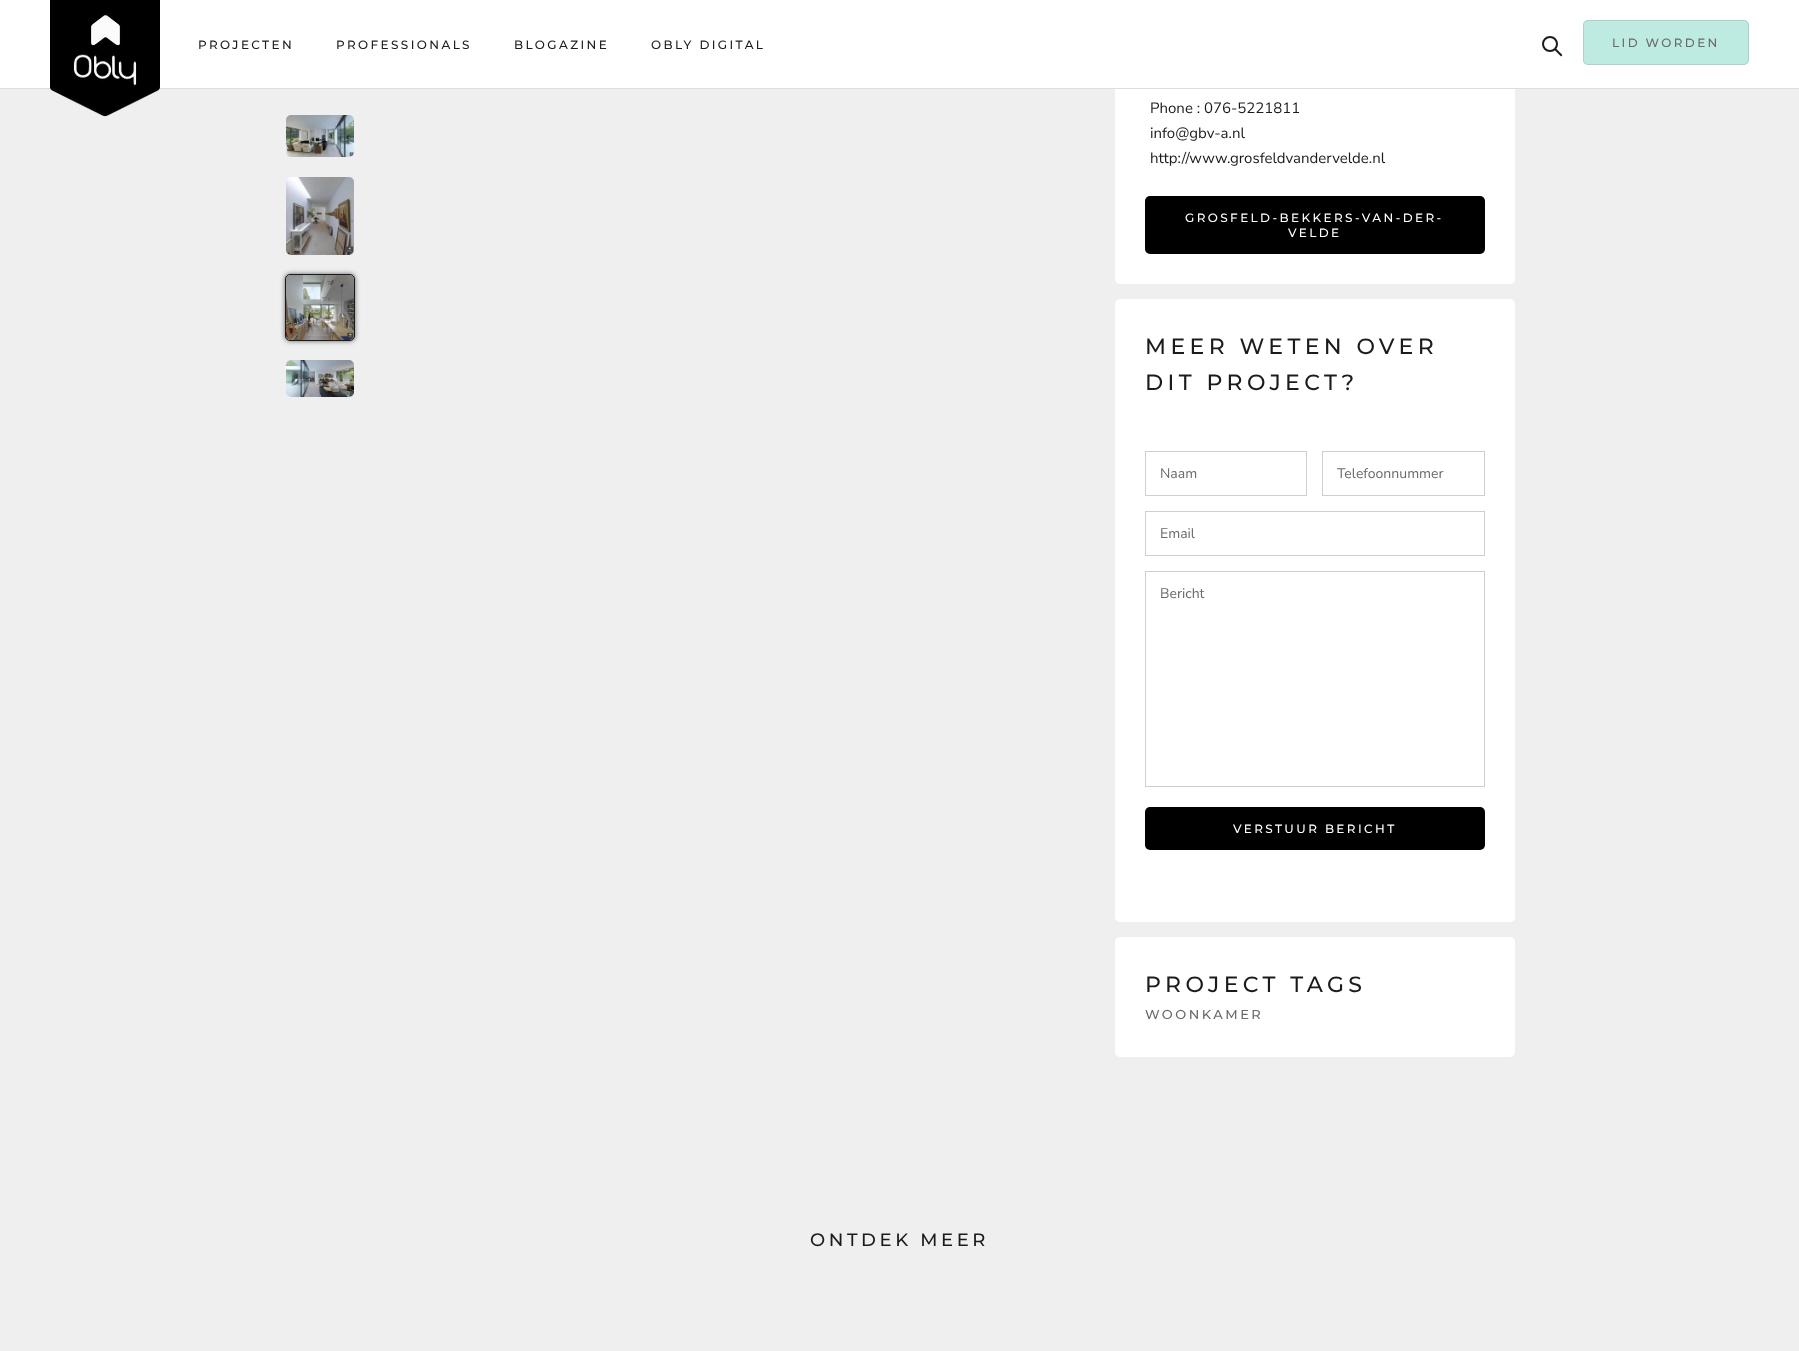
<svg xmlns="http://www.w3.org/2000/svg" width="1799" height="1351">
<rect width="100%" height="100%" fill="#efefef"/>
<rect x="1115" y="-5" width="400" height="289" rx="5" fill="#fff"/>
<rect width="1799" height="88" fill="#fff"/>
<rect y="88" width="1799" height="1" fill="#ddd"/>
<image x="50" y="0" width="110" height="117" href="media/1.png"/>
<text x="198" y="49" style="font-family:Montserrat;font-size:12px;font-weight:500;letter-spacing:2.4px;fill:#1c1b1b">PROJECTEN</text>
<text x="336" y="49" style="font-family:Montserrat;font-size:12px;font-weight:500;letter-spacing:2.4px;fill:#1c1b1b">PROFESSIONALS</text>
<text x="514" y="49" style="font-family:Montserrat;font-size:12px;font-weight:500;letter-spacing:2.4px;fill:#1c1b1b">BLOGAZINE</text>
<text x="651" y="49" style="font-family:Montserrat;font-size:12px;font-weight:500;letter-spacing:2.4px;fill:#1c1b1b">OBLY DIGITAL</text>
<path d="M1561 55l-5.5-5.5" fill="none" stroke="#1c1b1b" stroke-width="2" stroke-linecap="square"/>
<circle cx="1550" cy="44" r="7" fill="none" stroke="#1c1b1b" stroke-width="2"/>
<rect x="1583" y="20" width="166" height="45" rx="5" fill="#beebe1"/>
<rect x="1583.5" y="20.5" width="165" height="44" rx="4.5" fill="none" stroke="#6a6a6a33"/>
<text x="1612" y="47" style="font-family:Montserrat;font-size:12px;font-weight:500;letter-spacing:2.4px;fill:#6a6a6a">LID WORDEN</text>
<image x="286" y="115" width="68" height="42" href="media/2.png"/>
<image x="286" y="177" width="68" height="78" href="media/3.png"/>
<rect x="285" y="274" width="70" height="67" rx="5" fill="#323232bf" filter="blur(2.5px)"/>
<rect x="285.5" y="274.5" width="69" height="66" rx="4.5" fill="none" stroke="#1c1b1b"/>
<image x="286" y="275" width="68" height="65" href="media/4.png"/>
<image x="286" y="360" width="68" height="37" href="media/5.png"/>
<text x="1150" y="113" style="font-family:Nunito Sans;font-size:15px;fill:#1c1b1b">Phone : 076-5221811</text>
<text x="1150" y="138" style="font-family:Nunito Sans;font-size:15px;fill:#1c1b1b">info@gbv-a.nl</text>
<text x="1150" y="163" style="font-family:Nunito Sans;font-size:15px;fill:#1c1b1b">http://www.grosfeldvandervelde.nl</text>
<rect x="1145" y="196" width="340" height="58" rx="5" fill="#000"/>
<text x="1185" y="222" style="font-family:Montserrat;font-size:12px;font-weight:500;letter-spacing:2.4px;fill:#fff">GROSFELD-BEKKERS-VAN-DER-</text>
<text x="1288" y="237" style="font-family:Montserrat;font-size:12px;font-weight:500;letter-spacing:2.4px;fill:#fff">VELDE</text>
<rect x="1115" y="299" width="400" height="623" rx="5" fill="#fff"/>
<text x="1145" y="354" style="font-family:Montserrat;font-size:22px;font-weight:500;letter-spacing:4.4px;fill:#1c1b1b">MEER WETEN OVER</text>
<text x="1145" y="390" style="font-family:Montserrat;font-size:22px;font-weight:500;letter-spacing:4.4px;fill:#1c1b1b">DIT PROJECT?</text>
<rect x="1145.5" y="451.5" width="161" height="44" fill="none" stroke="#cfcfcf"/>
<text x="1160" y="478" style="font-family:Nunito Sans;font-size:14px;fill:#6a6a6a">Naam</text>
<rect x="1322.5" y="451.5" width="162" height="44" fill="none" stroke="#cfcfcf"/>
<text x="1337" y="478" style="font-family:Nunito Sans;font-size:14px;fill:#6a6a6a">Telefoonnummer</text>
<rect x="1145.5" y="511.5" width="339" height="44" fill="none" stroke="#cfcfcf"/>
<text x="1160" y="538" style="font-family:Nunito Sans;font-size:14px;fill:#6a6a6a">Email</text>
<rect x="1145.5" y="571.5" width="339" height="215" fill="none" stroke="#cfcfcf"/>
<text x="1160" y="598" style="font-family:Nunito Sans;font-size:14px;fill:#6a6a6a">Bericht</text>
<rect x="1145" y="807" width="340" height="43" rx="5" fill="#000"/>
<text x="1233" y="833" style="font-family:Montserrat;font-size:12px;font-weight:500;letter-spacing:2.4px;fill:#fff">VERSTUUR BERICHT</text>
<rect x="1115" y="937" width="400" height="120" rx="5" fill="#fff"/>
<text x="1145" y="992" style="font-family:Montserrat;font-size:22px;font-weight:500;letter-spacing:4.4px;fill:#1c1b1b">PROJECT TAGS</text>
<text x="1145" y="1019" style="font-family:Montserrat;font-size:13px;font-weight:500;letter-spacing:2.5px;fill:#6a6a6a">WOONKAMER</text>
<text x="810" y="1246" style="font-family:Montserrat;font-size:18px;font-weight:500;letter-spacing:3.6px;fill:#1c1b1b">ONTDEK MEER</text>
</svg>
